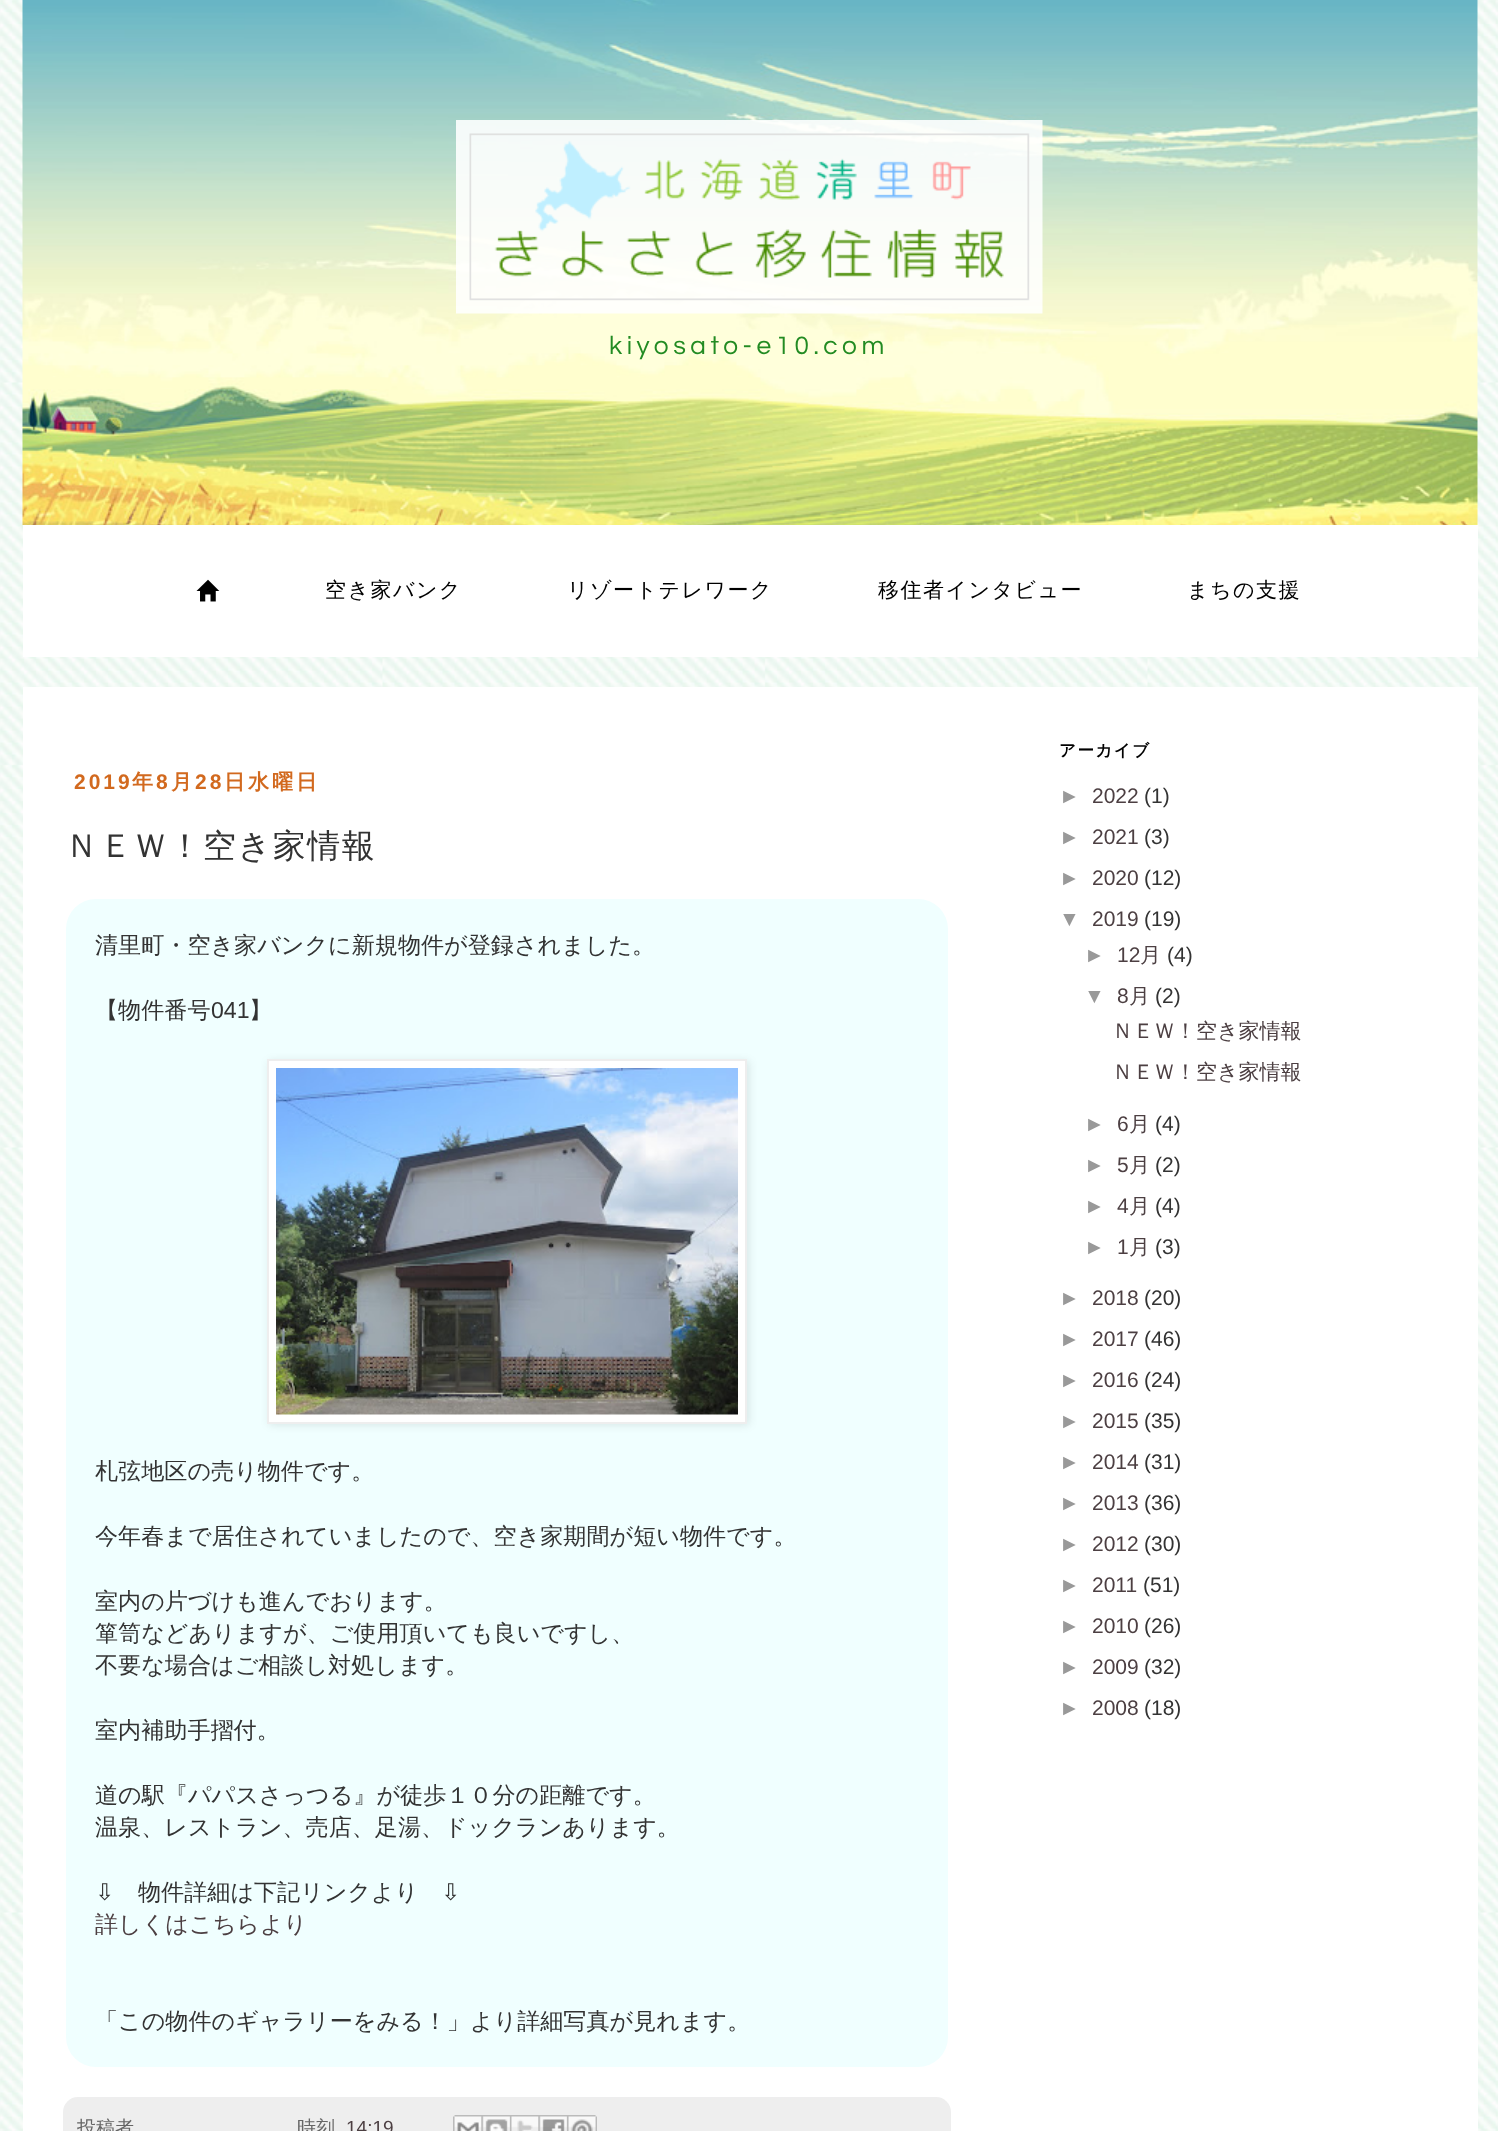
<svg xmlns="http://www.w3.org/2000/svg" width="1498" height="2131">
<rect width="100%" height="100%" fill="#fff"/>
<image x="0" y="0" width="1498" height="2131" href="media/1.png"/>
<image x="22" y="0" width="1456" height="525" href="media/2.png"/>
<image x="456" y="120" width="587" height="194" href="media/3.png"/>
<text x="609" y="354" style="font-family:Questrial;font-size:26.25px;letter-spacing:4.5px;fill:#228b22">kiyosato-e10.com</text>
<rect x="23" y="525" width="1455" height="132" fill="#fff"/>
<image x="196" y="579" width="24" height="23" href="media/4.png"/>
<text x="325" y="597" style="font-family:WenQuanYi Zen Hei;font-size:21px;font-weight:500;letter-spacing:1.5px;fill:#000">空き家バンク</text>
<text x="567" y="597" style="font-family:WenQuanYi Zen Hei;font-size:21px;font-weight:500;letter-spacing:1.5px;fill:#000">リゾートテレワーク</text>
<text x="878" y="597" style="font-family:WenQuanYi Zen Hei;font-size:21px;font-weight:500;letter-spacing:1.5px;fill:#000">移住者インタビュー</text>
<text x="1187" y="597" style="font-family:WenQuanYi Zen Hei;font-size:21px;font-weight:500;letter-spacing:1.5px;fill:#000">まちの支援</text>
<rect x="23" y="687" width="1455" height="1444" fill="#fff"/>
<text x="74" y="789" style="font-family:Liberation Sans;font-size:21px;font-weight:bold;letter-spacing:3px;fill:#d2691e">2019</text>
<text x="132" y="789" style="font-family:WenQuanYi Zen Hei;font-size:21px;font-weight:bold;letter-spacing:3px;fill:#d2691e">年</text>
<text x="156" y="789" style="font-family:Liberation Sans;font-size:21px;font-weight:bold;letter-spacing:3px;fill:#d2691e">8</text>
<text x="171" y="789" style="font-family:WenQuanYi Zen Hei;font-size:21px;font-weight:bold;letter-spacing:3px;fill:#d2691e">月</text>
<text x="195" y="789" style="font-family:Liberation Sans;font-size:21px;font-weight:bold;letter-spacing:3px;fill:#d2691e">28</text>
<text x="224" y="789" style="font-family:WenQuanYi Zen Hei;font-size:21px;font-weight:bold;letter-spacing:3px;fill:#d2691e">日水曜日</text>
<text x="65" y="857" style="font-family:WenQuanYi Zen Hei;font-size:33px;font-weight:500;letter-spacing:1.5px;fill:#333">ＮＥＷ！空き家情報</text>
<rect x="66" y="899" width="882" height="1168" rx="30" fill="#f0ffff"/>
<text x="95" y="953" style="font-family:WenQuanYi Zen Hei;font-size:23.1px;font-weight:500;fill:#333">清里町・空き家バンクに新規物件が登録されました。</text>
<text x="95" y="1018" style="font-family:WenQuanYi Zen Hei;font-size:23.1px;font-weight:500;fill:#333">【物件番号</text>
<text x="211" y="1018" style="font-family:Liberation Sans;font-size:23.1px;fill:#333">041</text>
<text x="249" y="1018" style="font-family:WenQuanYi Zen Hei;font-size:23.1px;font-weight:500;fill:#333">】</text>
<rect x="269" y="1061" width="480" height="364" fill="#0000001a" filter="blur(4px)"/>
<rect x="268" y="1060" width="478" height="363" fill="#fff" stroke="#eee" stroke-width="2"/>
<image x="276" y="1068" width="462" height="347" href="media/5.png"/>
<text x="95" y="1479" style="font-family:WenQuanYi Zen Hei;font-size:23.1px;font-weight:500;fill:#333">札弦地区の売り物件です。</text>
<text x="95" y="1544" style="font-family:WenQuanYi Zen Hei;font-size:23.1px;font-weight:500;fill:#333">今年春まで居住されていましたので、空き家期間が短い物件です。</text>
<text x="95" y="1609" style="font-family:WenQuanYi Zen Hei;font-size:23.1px;font-weight:500;fill:#333">室内の片づけも進んでおります。</text>
<text x="95" y="1641" style="font-family:WenQuanYi Zen Hei;font-size:23.1px;font-weight:500;fill:#333">箪笥などありますが、ご使用頂いても良いですし、</text>
<text x="95" y="1673" style="font-family:WenQuanYi Zen Hei;font-size:23.1px;font-weight:500;fill:#333">不要な場合はご相談し対処します。</text>
<text x="95" y="1738" style="font-family:WenQuanYi Zen Hei;font-size:23.1px;font-weight:500;fill:#333">室内補助手摺付。</text>
<text x="95" y="1803" style="font-family:WenQuanYi Zen Hei;font-size:23.1px;font-weight:500;fill:#333">道の駅『パパスさっつる』が徒歩１０分の距離です。</text>
<text x="95" y="1835" style="font-family:WenQuanYi Zen Hei;font-size:23.1px;font-weight:500;fill:#333">温泉、レストラン、売店、足湯、ドックランあります。</text>
<text x="95" y="1900" style="font-family:DejaVu Sans;font-size:23.1px;fill:#333">⇩</text>
<text x="138" y="1900" style="font-family:WenQuanYi Zen Hei;font-size:23.1px;font-weight:500;fill:#333">物件詳細は下記リンクより</text>
<text x="441" y="1900" style="font-family:DejaVu Sans;font-size:23.1px;fill:#333">⇩</text>
<text x="95" y="1932" style="font-family:WenQuanYi Zen Hei;font-size:23.1px;font-weight:500;fill:#4c3f42">詳しくはこちらより</text>
<text x="95" y="2029" style="font-family:WenQuanYi Zen Hei;font-size:23.1px;font-weight:500;fill:#333">「この物件のギャラリーをみる！」より詳細写真が見れます。</text>
<rect x="63" y="2097" width="888" height="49" rx="15" fill="#eee"/>
<text x="77" y="2134" style="font-family:WenQuanYi Zen Hei;font-size:19px;font-weight:500;fill:#666">投稿者</text>
<text x="297" y="2134" style="font-family:WenQuanYi Zen Hei;font-size:19px;font-weight:500;fill:#666">時刻</text>
<text x="346" y="2134" style="font-family:Liberation Sans;font-size:19px;fill:#4c3f42">14:19</text>
<image x="453" y="2115" width="29" height="16" href="media/6.png"/>
<image x="481" y="2115" width="29" height="16" href="media/7.png"/>
<image x="510" y="2115" width="29" height="16" href="media/8.png"/>
<image x="538" y="2115" width="29" height="16" href="media/9.png"/>
<image x="567" y="2115" width="30" height="16" href="media/10.png"/>
<text x="1059" y="756" style="font-family:WenQuanYi Zen Hei;font-size:16.5px;font-weight:bold;letter-spacing:1.5px;fill:#000">アーカイブ</text>
<text x="1059" y="803" style="font-family:Liberation Sans;font-size:21px;fill:#999">►</text>
<text x="1092" y="803" style="font-family:Liberation Sans;font-size:21px;fill:#4c3f42">2022</text>
<text x="1144" y="803" style="font-family:Liberation Sans;font-size:21px;fill:#333">(1)</text>
<text x="1059" y="844" style="font-family:Liberation Sans;font-size:21px;fill:#999">►</text>
<text x="1092" y="844" style="font-family:Liberation Sans;font-size:21px;fill:#4c3f42">2021</text>
<text x="1144" y="844" style="font-family:Liberation Sans;font-size:21px;fill:#333">(3)</text>
<text x="1059" y="885" style="font-family:Liberation Sans;font-size:21px;fill:#999">►</text>
<text x="1092" y="885" style="font-family:Liberation Sans;font-size:21px;fill:#4c3f42">2020</text>
<text x="1144" y="885" style="font-family:Liberation Sans;font-size:21px;fill:#333">(12)</text>
<text x="1059" y="926" style="font-family:Liberation Sans;font-size:21px;fill:#999">▼</text>
<text x="1092" y="926" style="font-family:Liberation Sans;font-size:21px;fill:#4c3f42">2019</text>
<text x="1144" y="926" style="font-family:Liberation Sans;font-size:21px;fill:#333">(19)</text>
<text x="1084" y="962" style="font-family:Liberation Sans;font-size:21px;fill:#999">►</text>
<text x="1117" y="962" style="font-family:Liberation Sans;font-size:21px;fill:#4c3f42">12</text>
<text x="1140" y="962" style="font-family:WenQuanYi Zen Hei;font-size:21px;font-weight:500;fill:#4c3f42">月</text>
<text x="1167" y="962" style="font-family:Liberation Sans;font-size:21px;fill:#333">(4)</text>
<text x="1084" y="1003" style="font-family:Liberation Sans;font-size:21px;fill:#999">▼</text>
<text x="1117" y="1003" style="font-family:Liberation Sans;font-size:21px;fill:#4c3f42">8</text>
<text x="1129" y="1003" style="font-family:WenQuanYi Zen Hei;font-size:21px;font-weight:500;fill:#4c3f42">月</text>
<text x="1155" y="1003" style="font-family:Liberation Sans;font-size:21px;fill:#333">(2)</text>
<text x="1112" y="1038" style="font-family:WenQuanYi Zen Hei;font-size:21px;font-weight:500;fill:#4c3f42">ＮＥＷ！空き家情報</text>
<text x="1112" y="1079" style="font-family:WenQuanYi Zen Hei;font-size:21px;font-weight:500;fill:#4c3f42">ＮＥＷ！空き家情報</text>
<text x="1084" y="1131" style="font-family:Liberation Sans;font-size:21px;fill:#999">►</text>
<text x="1117" y="1131" style="font-family:Liberation Sans;font-size:21px;fill:#4c3f42">6</text>
<text x="1129" y="1131" style="font-family:WenQuanYi Zen Hei;font-size:21px;font-weight:500;fill:#4c3f42">月</text>
<text x="1155" y="1131" style="font-family:Liberation Sans;font-size:21px;fill:#333">(4)</text>
<text x="1084" y="1172" style="font-family:Liberation Sans;font-size:21px;fill:#999">►</text>
<text x="1117" y="1172" style="font-family:Liberation Sans;font-size:21px;fill:#4c3f42">5</text>
<text x="1129" y="1172" style="font-family:WenQuanYi Zen Hei;font-size:21px;font-weight:500;fill:#4c3f42">月</text>
<text x="1155" y="1172" style="font-family:Liberation Sans;font-size:21px;fill:#333">(2)</text>
<text x="1084" y="1213" style="font-family:Liberation Sans;font-size:21px;fill:#999">►</text>
<text x="1117" y="1213" style="font-family:Liberation Sans;font-size:21px;fill:#4c3f42">4</text>
<text x="1129" y="1213" style="font-family:WenQuanYi Zen Hei;font-size:21px;font-weight:500;fill:#4c3f42">月</text>
<text x="1155" y="1213" style="font-family:Liberation Sans;font-size:21px;fill:#333">(4)</text>
<text x="1084" y="1254" style="font-family:Liberation Sans;font-size:21px;fill:#999">►</text>
<text x="1117" y="1254" style="font-family:Liberation Sans;font-size:21px;fill:#4c3f42">1</text>
<text x="1129" y="1254" style="font-family:WenQuanYi Zen Hei;font-size:21px;font-weight:500;fill:#4c3f42">月</text>
<text x="1155" y="1254" style="font-family:Liberation Sans;font-size:21px;fill:#333">(3)</text>
<text x="1059" y="1305" style="font-family:Liberation Sans;font-size:21px;fill:#999">►</text>
<text x="1092" y="1305" style="font-family:Liberation Sans;font-size:21px;fill:#4c3f42">2018</text>
<text x="1144" y="1305" style="font-family:Liberation Sans;font-size:21px;fill:#333">(20)</text>
<text x="1059" y="1346" style="font-family:Liberation Sans;font-size:21px;fill:#999">►</text>
<text x="1092" y="1346" style="font-family:Liberation Sans;font-size:21px;fill:#4c3f42">2017</text>
<text x="1144" y="1346" style="font-family:Liberation Sans;font-size:21px;fill:#333">(46)</text>
<text x="1059" y="1387" style="font-family:Liberation Sans;font-size:21px;fill:#999">►</text>
<text x="1092" y="1387" style="font-family:Liberation Sans;font-size:21px;fill:#4c3f42">2016</text>
<text x="1144" y="1387" style="font-family:Liberation Sans;font-size:21px;fill:#333">(24)</text>
<text x="1059" y="1428" style="font-family:Liberation Sans;font-size:21px;fill:#999">►</text>
<text x="1092" y="1428" style="font-family:Liberation Sans;font-size:21px;fill:#4c3f42">2015</text>
<text x="1144" y="1428" style="font-family:Liberation Sans;font-size:21px;fill:#333">(35)</text>
<text x="1059" y="1469" style="font-family:Liberation Sans;font-size:21px;fill:#999">►</text>
<text x="1092" y="1469" style="font-family:Liberation Sans;font-size:21px;fill:#4c3f42">2014</text>
<text x="1144" y="1469" style="font-family:Liberation Sans;font-size:21px;fill:#333">(31)</text>
<text x="1059" y="1510" style="font-family:Liberation Sans;font-size:21px;fill:#999">►</text>
<text x="1092" y="1510" style="font-family:Liberation Sans;font-size:21px;fill:#4c3f42">2013</text>
<text x="1144" y="1510" style="font-family:Liberation Sans;font-size:21px;fill:#333">(36)</text>
<text x="1059" y="1551" style="font-family:Liberation Sans;font-size:21px;fill:#999">►</text>
<text x="1092" y="1551" style="font-family:Liberation Sans;font-size:21px;fill:#4c3f42">2012</text>
<text x="1144" y="1551" style="font-family:Liberation Sans;font-size:21px;fill:#333">(30)</text>
<text x="1059" y="1592" style="font-family:Liberation Sans;font-size:21px;fill:#999">►</text>
<text x="1092" y="1592" style="font-family:Liberation Sans;font-size:21px;fill:#4c3f42">2011</text>
<text x="1143" y="1592" style="font-family:Liberation Sans;font-size:21px;fill:#333">(51)</text>
<text x="1059" y="1633" style="font-family:Liberation Sans;font-size:21px;fill:#999">►</text>
<text x="1092" y="1633" style="font-family:Liberation Sans;font-size:21px;fill:#4c3f42">2010</text>
<text x="1144" y="1633" style="font-family:Liberation Sans;font-size:21px;fill:#333">(26)</text>
<text x="1059" y="1674" style="font-family:Liberation Sans;font-size:21px;fill:#999">►</text>
<text x="1092" y="1674" style="font-family:Liberation Sans;font-size:21px;fill:#4c3f42">2009</text>
<text x="1144" y="1674" style="font-family:Liberation Sans;font-size:21px;fill:#333">(32)</text>
<text x="1059" y="1715" style="font-family:Liberation Sans;font-size:21px;fill:#999">►</text>
<text x="1092" y="1715" style="font-family:Liberation Sans;font-size:21px;fill:#4c3f42">2008</text>
<text x="1144" y="1715" style="font-family:Liberation Sans;font-size:21px;fill:#333">(18)</text>
</svg>
